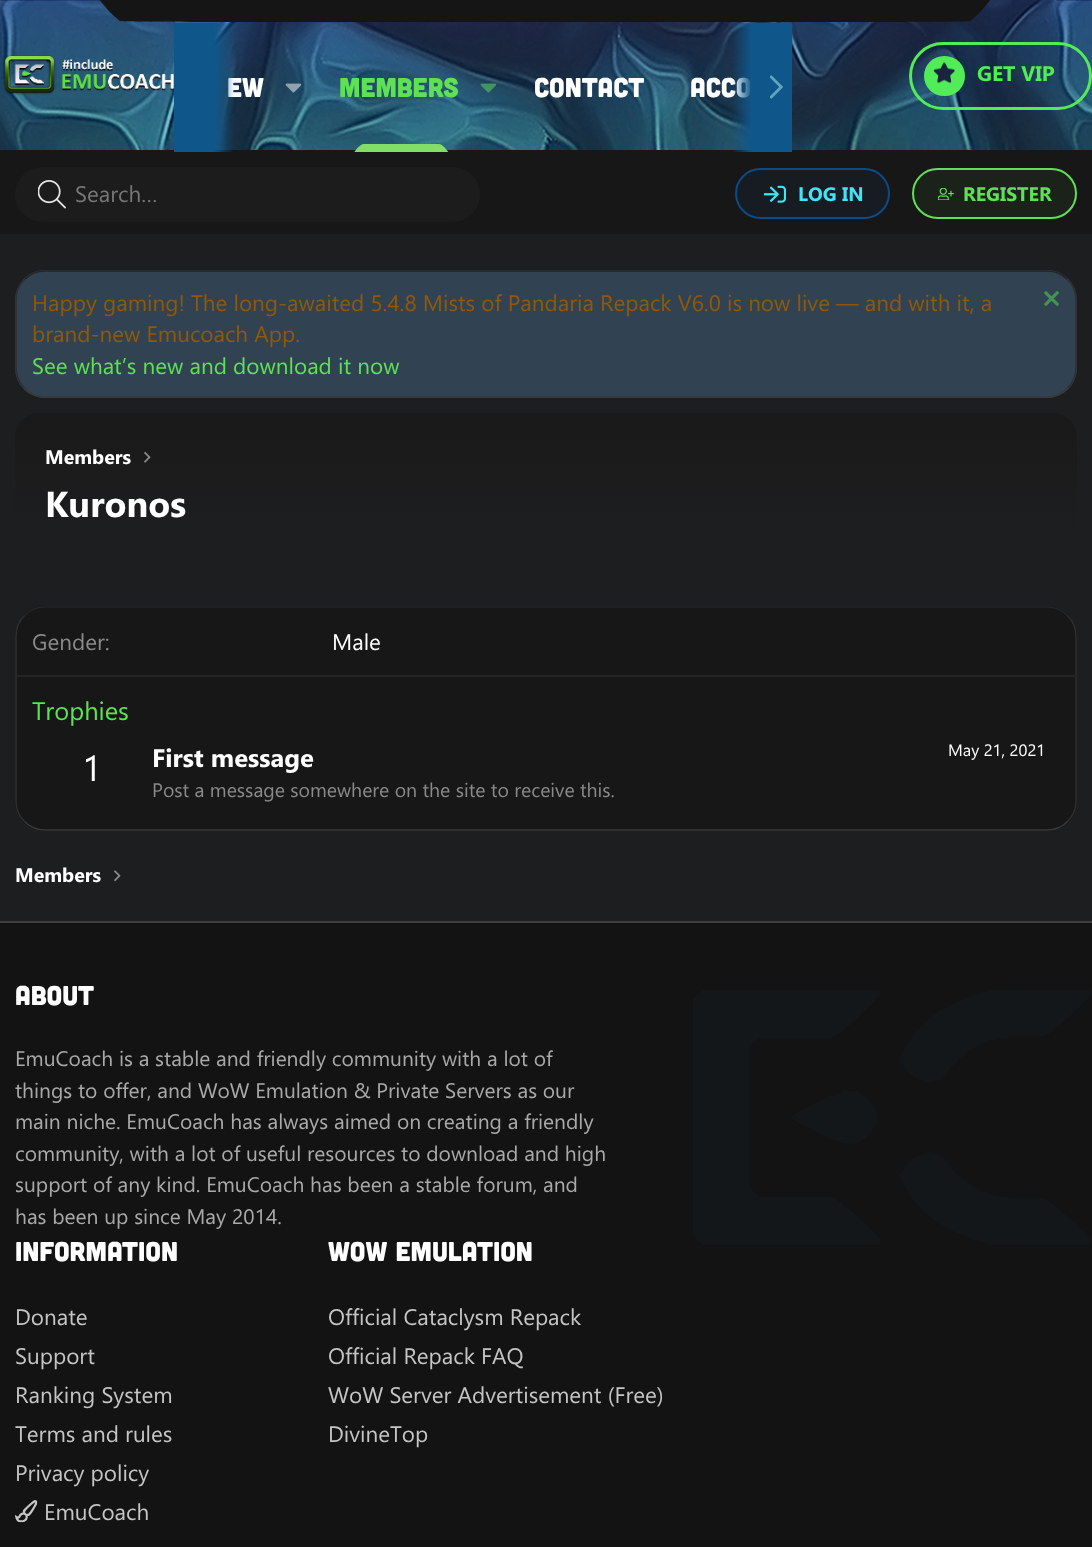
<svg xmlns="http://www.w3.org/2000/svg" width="1092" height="1547">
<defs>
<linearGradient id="g1" gradientUnits="userSpaceOnUse" x1="174" y1="87" x2="234" y2="87"><stop offset="0.66" stop-color="#0f578a"/><stop offset="1" stop-color="#0f578a" stop-opacity="0"/></linearGradient>
<clipPath id="clip1"><rect x="353" y="144" width="97" height="8"/></clipPath>
<linearGradient id="g2" gradientUnits="userSpaceOnUse" x1="732" y1="87" x2="792" y2="87"><stop offset="0" stop-color="#0f578a" stop-opacity="0"/><stop offset="0.33" stop-color="#0f578a"/></linearGradient>
<linearGradient id="g3" gradientUnits="userSpaceOnUse" x1="546" y1="412" x2="546" y2="606"><stop offset="0" stop-color="#191919"/><stop offset="0.63" stop-color="#1d1e1f"/><stop offset="1" stop-color="#1d1e1f"/></linearGradient>
</defs>
<rect width="100%" height="100%" fill="#1d1e1f"/>
<image x="0" y="0" width="1092" height="150" href="media/1.png"/>
<path d="M97-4c0 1 12 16 17 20l6 5c3 1 36 1 425 1c389 0 422 0 425-1l6-5c5-4 17-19 17-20c0 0-170-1-448-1c-278 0-448 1-448 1z" fill="#151515"/>
<image x="3" y="55" width="171" height="40" href="media/2.png"/>
<rect x="910.5" y="43.5" width="180" height="65" rx="32.5" fill="none" stroke="#51ec57" stroke-width="3"/>
<rect x="924" y="56" width="41" height="40" rx="20" fill="#51ec57"/>
<image x="933" y="62" width="22" height="22" href="media/3.png"/>
<text x="977" y="81" style="font-family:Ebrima;font-size:21px;font-weight:bold;fill:#51ec57">GET VIP</text>
<text x="227" y="97" style="font-family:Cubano;font-size:27px;fill:#fff">ew</text>
<rect y="150" width="1092" height="84" fill="#171717"/>
<rect x="174" y="23" width="60" height="129" fill="url(#g1)"/>
<image x="285" y="83" width="17" height="10" href="media/4.png"/>
<g clip-path="url(#clip1)">
<path d="M361 145c-3 2-6 6-8 9h97c-2-2-7-10-11-10h-76z" fill="#82de67"/>
</g>
<text x="339" y="97" style="font-family:Cubano;font-size:27px;fill:#5ee154">Members</text>
<image x="480" y="83" width="17" height="10" href="media/5.png"/>
<text x="534" y="97" style="font-family:Cubano;font-size:27px;fill:#fff">Contact</text>
<text x="690" y="97" style="font-family:Cubano;font-size:27px;fill:#fff">Acco</text>
<rect x="732" y="23" width="60" height="129" fill="url(#g2)"/>
<image x="770" y="75" width="13" height="24" href="media/6.png"/>
<rect x="15" y="167" width="465" height="55" rx="27" fill="#1c1c1c"/>
<image x="38" y="180" width="28" height="29" href="media/7.png"/>
<text x="75" y="202" style="font-family:Ebrima;font-size:22.5px;fill:#777">Search…</text>
<rect x="736" y="169" width="153" height="49" rx="24.5" fill="#161c22" stroke="#094c87" stroke-width="2"/>
<image x="764" y="185" width="22" height="18" href="media/8.png"/>
<text x="798" y="201" style="font-family:Ebrima;font-size:19.5px;font-weight:bold;fill:#40e5f7">LOG IN</text>
<rect x="913" y="169" width="163" height="49" rx="24.5" fill="#1a221a" stroke="#5ee154" stroke-width="2"/>
<image x="938" y="188" width="16" height="12" href="media/9.png"/>
<text x="963" y="201" style="font-family:Ebrima;font-size:19.5px;font-weight:bold;fill:#5ee154">REGISTER</text>
<rect x="15" y="270" width="1062" height="128" rx="30" fill="#314353"/>
<path d="M24.5 279.5c5.5-5.5 12.5-8.5 20.5-8.5h1002c8 0 15 3 20.5 8.5" fill="none" stroke="#252525" stroke-width="1.5"/>
<path d="M1067.5 279.5c5.5 5.5 8.5 12.5 8.5 20.5v67.5c0 8-3 15-8.5 20.5" fill="none" stroke="#2f2f2f" stroke-width="1.5"/>
<path d="M1067.5 388c-5.5 5.5-12.5 9-20.5 9h-1002c-8 0-15-3.5-20.5-9" fill="none" stroke="#393939" stroke-width="1.5"/>
<path d="M24.5 388c-5.5-5.5-8.5-12.5-8.5-20.5v-67.5c0-8 3-15 8.5-20.5" fill="none" stroke="#2f2f2f" stroke-width="1.5"/>
<text x="32" y="311" style="font-family:Ebrima;font-size:22.5px;fill:#915808">Happy gaming! The long-awaited 5.4.8 Mists of Pandaria Repack V6.0 is now live — and with it, a</text>
<text x="32" y="342" style="font-family:Ebrima;font-size:22.5px;fill:#915808">brand-new Emucoach App.</text>
<text x="32" y="374" style="font-family:Ebrima;font-size:22.5px;fill:#5ee154">See what’s new and download it now</text>
<image x="1044" y="291" width="15" height="15" href="media/10.png"/>
<path d="M39 413h1014c13.5 0 24 10.5 24 24v169h-1062v-169c0-13.5 10.5-24 24-24z" fill="url(#g3)"/>
<text x="45" y="464" style="font-family:Ebrima;font-size:19.5px;font-weight:bold;fill:#fff">Members</text>
<image x="144" y="451" width="7" height="12" href="media/11.png"/>
<text x="45" y="517" style="font-family:Ebrima;font-size:36px;font-weight:bold;fill:#fff">Kuronos</text>
<rect x="15" y="606" width="1062" height="225" rx="30" fill="#161716"/>
<path d="M24.5 615.5c5.5-5.5 12.5-8.5 20.5-8.5h1002c8 0 15 3 20.5 8.5" fill="none" stroke="#252525" stroke-width="1.5"/>
<path d="M1067.5 615.5c5.5 5.5 8.5 12.5 8.5 20.5v165c0 8-3 15-8.5 20.5" fill="none" stroke="#2f2f2f" stroke-width="1.5"/>
<path d="M1067.5 821.5c-5.5 5.5-12.5 8.5-20.5 8.5h-1002c-8 0-15-3-20.5-8.5" fill="none" stroke="#393939" stroke-width="1.5"/>
<path d="M24.5 821.5c-5.5-5.5-8.5-12.5-8.5-20.5v-165c0-8 3-15 8.5-20.5" fill="none" stroke="#2f2f2f" stroke-width="1.5"/>
<text x="32" y="650" style="font-family:Ebrima;font-size:22.5px;fill:#8a8a8a">Gender:</text>
<text x="332" y="650" style="font-family:Ebrima;font-size:22.5px;fill:#fff">Male</text>
<rect x="17" y="675" width="1059" height="2" fill="#252525"/>
<text x="32" y="720" style="font-family:Ebrima;font-size:25.5px;fill:#5ee154">Trophies</text>
<text x="82" y="781" style="font-family:Ebrima;font-size:36px;fill:#fff">1</text>
<text x="152" y="767" style="font-family:Ebrima;font-size:25.5px;font-weight:bold;fill:#fff">First message</text>
<text x="948" y="756" style="font-family:Ebrima;font-size:16.5px;fill:#fff">May 21, 2021</text>
<text x="152" y="797" style="font-family:Ebrima;font-size:19.5px;fill:#8a8a8a">Post a message somewhere on the site to receive this.</text>
<text x="15" y="882" style="font-family:Ebrima;font-size:19.5px;font-weight:bold;fill:#fff">Members</text>
<image x="114" y="870" width="7" height="12" href="media/12.png"/>
<rect y="923" width="1092" height="624" fill="#131314"/>
<rect y="921" width="1092" height="2" fill="#3e3e3f"/>
<image x="693" y="990" width="398" height="255" href="media/13.png"/>
<text x="15" y="1005" style="font-family:Cubano;font-size:27px;fill:#fff">About</text>
<text x="15" y="1066" style="font-family:Ebrima;font-size:21px;fill:#a9a9a9">EmuCoach is a stable and friendly community with a lot of</text>
<text x="15" y="1098" style="font-family:Ebrima;font-size:21px;fill:#a9a9a9">things to offer, and WoW Emulation &amp; Private Servers as our</text>
<text x="15" y="1129" style="font-family:Ebrima;font-size:21px;fill:#a9a9a9">main niche. EmuCoach has always aimed on creating a friendly</text>
<text x="15" y="1161" style="font-family:Ebrima;font-size:21px;fill:#a9a9a9">community, with a lot of useful resources to download and high</text>
<text x="15" y="1192" style="font-family:Ebrima;font-size:21px;fill:#a9a9a9">support of any kind. EmuCoach has been a stable forum, and</text>
<text x="15" y="1224" style="font-family:Ebrima;font-size:21px;fill:#a9a9a9">has been up since May 2014.</text>
<text x="15" y="1261" style="font-family:Cubano;font-size:27px;fill:#fff">Information</text>
<text x="15" y="1325" style="font-family:Ebrima;font-size:22.5px;fill:#c5c5c5">Donate</text>
<text x="15" y="1364" style="font-family:Ebrima;font-size:22.5px;fill:#c5c5c5">Support</text>
<text x="15" y="1403" style="font-family:Ebrima;font-size:22.5px;fill:#c5c5c5">Ranking System</text>
<text x="15" y="1442" style="font-family:Ebrima;font-size:22.5px;fill:#c5c5c5">Terms and rules</text>
<text x="15" y="1481" style="font-family:Ebrima;font-size:22.5px;fill:#c5c5c5">Privacy policy</text>
<image x="15" y="1500" width="23" height="23" href="media/14.png"/>
<text x="44" y="1520" style="font-family:Ebrima;font-size:22.5px;fill:#c5c5c5">EmuCoach</text>
<text x="328" y="1261" style="font-family:Cubano;font-size:27px;fill:#fff">Wow Emulation</text>
<text x="328" y="1325" style="font-family:Ebrima;font-size:22.5px;fill:#c5c5c5">Official Cataclysm Repack</text>
<text x="328" y="1364" style="font-family:Ebrima;font-size:22.5px;fill:#c5c5c5">Official Repack FAQ</text>
<text x="328" y="1403" style="font-family:Ebrima;font-size:22.5px;fill:#c5c5c5">WoW Server Advertisement (Free)</text>
<text x="328" y="1442" style="font-family:Ebrima;font-size:22.5px;fill:#c5c5c5">DivineTop</text>
</svg>
